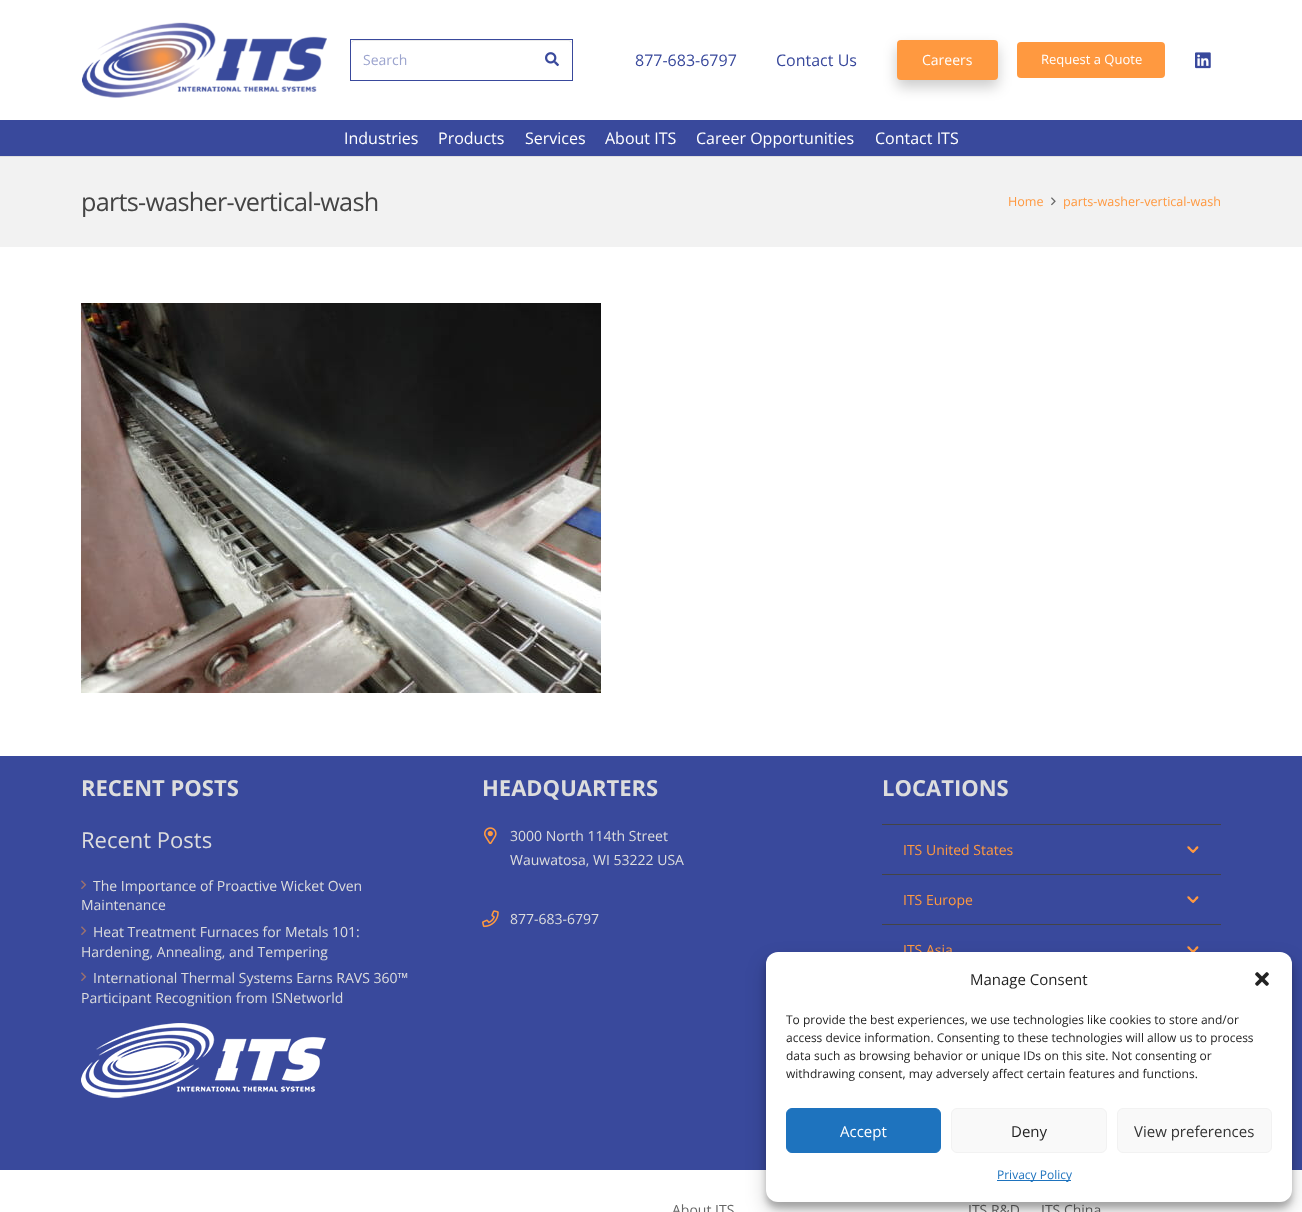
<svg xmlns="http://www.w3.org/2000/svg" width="1302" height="1212">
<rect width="100%" height="100%" fill="#fff"/>
<image x="82" y="22" width="245" height="76" href="media/1.png"/>
<rect x="350.5" y="39.5" width="222" height="41" fill="none" stroke="#39499c"/>
<path d="M355 41h213c2 0 4 2 4 4c0-3-1-5-4-5h-213c-3 0-4 2-4 5c0-2 2-4 4-4z" fill="#ebebeb"/>
<text x="363" y="65" style="font-family:Open Sans;font-size:14px;fill:#9ca4ce">Search</text>
<image x="545" y="52" width="14" height="15" href="media/2.png"/>
<text x="635" y="66" style="font-family:Open Sans;font-size:16px;fill:#39499c">877-683-6797</text>
<text x="776" y="66" style="font-family:Open Sans;font-size:16px;fill:#39499c">Contact Us</text>
<rect x="897" y="47" width="101" height="40" rx="4" fill="#00000033" filter="blur(7px)"/>
<rect x="897" y="40" width="101" height="40" rx="4" fill="#ff9940"/>
<text x="922" y="65" style="font-family:Open Sans;font-size:14px;fill:#fff">Careers</text>
<rect x="1017" y="42" width="148" height="36" rx="4" fill="#ff9940"/>
<text x="1041" y="64" style="font-family:Open Sans;font-size:13px;fill:#fff">Request a Quote</text>
<image x="1195" y="52" width="16" height="17" href="media/3.png"/>
<rect y="156" width="1302" height="1" fill="#dfdfdf"/>
<rect y="120" width="1302" height="36" fill="#39499c"/>
<text x="344" y="144" style="font-family:Open Sans;font-size:16px;fill:#fff">Industries</text>
<text x="438" y="144" style="font-family:Open Sans;font-size:16px;fill:#fff">Products</text>
<text x="525" y="144" style="font-family:Open Sans;font-size:16px;fill:#fff">Services</text>
<text x="605" y="144" style="font-family:Open Sans;font-size:16px;fill:#fff">About ITS</text>
<text x="696" y="144" style="font-family:Open Sans;font-size:16px;fill:#fff">Career Opportunities</text>
<text x="875" y="144" style="font-family:Open Sans;font-size:16px;fill:#fff">Contact ITS</text>
<rect y="157" width="1302" height="90" fill="#f2f2f2"/>
<text x="81" y="211" style="font-family:Open Sans;font-size:25.25px;letter-spacing:-0.75px;fill:#444">parts-washer-vertical-wash</text>
<text x="1008" y="206" style="font-family:Open Sans;font-size:12.6px;fill:#ff9940">Home</text>
<image x="1051" y="197" width="5" height="9" href="media/4.png"/>
<text x="1063" y="206" style="font-family:Open Sans;font-size:12.6px;fill:#ff9940">parts-washer-vertical-wash</text>
<image x="81" y="303" width="520" height="390" href="media/5.png"/>
<rect y="756" width="1302" height="414" fill="#39499c"/>
<text x="81" y="796" style="font-family:Open Sans;font-size:22px;font-weight:bold;fill:#ddd">RECENT POSTS</text>
<text x="81" y="848" style="font-family:Open Sans;font-size:22px;fill:#ddd">Recent Posts</text>
<image x="81" y="880" width="6" height="9" href="media/6.png"/>
<text x="93" y="891" style="font-family:Open Sans;font-size:14px;fill:#ddd">The Importance of Proactive Wicket Oven</text>
<text x="81" y="910" style="font-family:Open Sans;font-size:14px;fill:#ddd">Maintenance</text>
<image x="81" y="926" width="6" height="9" href="media/6.png"/>
<text x="93" y="937" style="font-family:Open Sans;font-size:14px;fill:#ddd">Heat Treatment Furnaces for Metals 101:</text>
<text x="81" y="957" style="font-family:Open Sans;font-size:14px;fill:#ddd">Hardening, Annealing, and Tempering</text>
<image x="81" y="972" width="6" height="9" href="media/6.png"/>
<text x="93" y="983" style="font-family:Open Sans;font-size:14px;fill:#ddd">International Thermal Systems Earns RAVS 360™</text>
<text x="81" y="1003" style="font-family:Open Sans;font-size:14px;fill:#ddd">Participant Recognition from ISNetworld</text>
<image x="81" y="1023" width="245" height="75" href="media/7.png"/>
<text x="482" y="796" style="font-family:Open Sans;font-size:22px;font-weight:bold;fill:#ddd">HEADQUARTERS</text>
<image x="484" y="827" width="13" height="18" href="media/8.png"/>
<text x="510" y="841" style="font-family:Open Sans;font-size:14px;fill:#ddd">3000 North 114th Street</text>
<text x="510" y="865" style="font-family:Open Sans;font-size:14px;fill:#ddd">Wauwatosa, WI 53222 USA</text>
<image x="482" y="910" width="17" height="18" href="media/9.png"/>
<text x="510" y="924" style="font-family:Open Sans;font-size:14px;fill:#ddd">877-683-6797</text>
<text x="882" y="796" style="font-family:Open Sans;font-size:22px;font-weight:bold;fill:#ddd">LOCATIONS</text>
<rect x="882" y="824" width="339" height="1" fill="#444"/>
<text x="903" y="855" style="font-family:Open Sans;font-size:14px;fill:#ff9940">ITS United States</text>
<path d="M1187.5 846.5c1.5-1 3 1.5 4 2.5c.5 .5 3.5 2.5 2 3.5c-1 1-3-1.5-3.5-2c-.5-1-3.5-2.5-2.5-4z" fill="#ff9940"/>
<rect x="882" y="874" width="339" height="1" fill="#444"/>
<path d="M1198 846.5c1.5 1.5-1.5 3-2 4c-.5 .5-2.5 3.5-3.5 2c-1.5-1.5 1.5-3 2-3.5c.5-1 2.5-3.5 3.5-2.5zm-10.5 50c1.5-1 3 1.5 4 2.5c.5 .5 3.5 2.5 2 3.5c-1 1-3-1.5-3.5-2c-.5-1-3.5-2.5-2.5-4z" fill="#ff9940"/>
<text x="903" y="905" style="font-family:Open Sans;font-size:14px;fill:#ff9940">ITS Europe</text>
<rect x="882" y="924" width="339" height="1" fill="#444"/>
<path d="M1198 896.5c1.5 1.5-1.5 3-2 4c-.5 .5-2.5 3.5-3.5 2c-1.5-1.5 1.5-3 2-3.5c.5-1 2.5-3.5 3.5-2.5zm-10.5 50c1.5-1 3 1.5 4 2.5c.5 .5 3.5 2.5 2 3.5c-1 1-3-1.5-3.5-2c-.5-1-3.5-2.5-2.5-4z" fill="#ff9940"/>
<text x="903" y="955" style="font-family:Open Sans;font-size:14px;fill:#ff9940">ITS Asia</text>
<path d="M1198 946.5c1.5 1.5-1.5 3-2 4c-.5 .5-2.5 3.5-3.5 2c-1.5-1.5 1.5-3 2-3.5c.5-1 2.5-3.5 3.5-2.5z" fill="#ff9940"/>
<text x="672" y="1215" style="font-family:Open Sans;font-size:14px;fill:#666">About ITS</text>
<text x="968" y="1215" style="font-family:Open Sans;font-size:14px;fill:#666">ITS R&amp;D</text>
<text x="1041" y="1215" style="font-family:Open Sans;font-size:14px;fill:#666">ITS China</text>
<rect x="766" y="958" width="526" height="250" rx="12" fill="#0000003b" filter="blur(3px)"/>
<rect x="766" y="962" width="526" height="250" rx="12" fill="#00000030" filter="blur(10px)"/>
<rect x="766" y="952" width="526" height="250" rx="12" fill="#fff"/>
<text x="970" y="985" style="font-family:Open Sans;font-size:15px;fill:#222">Manage Consent</text>
<image x="1255" y="972" width="14" height="14" href="media/10.png"/>
<text x="786" y="1024" style="font-family:Open Sans;font-size:12px;fill:#222">To provide the best experiences, we use technologies like cookies to store and/or</text>
<text x="786" y="1042" style="font-family:Open Sans;font-size:12px;fill:#222">access device information. Consenting to these technologies will allow us to process</text>
<text x="786" y="1060" style="font-family:Open Sans;font-size:12px;fill:#222">data such as browsing behavior or unique IDs on this site. Not consenting or</text>
<text x="786" y="1078" style="font-family:Open Sans;font-size:12px;fill:#222">withdrawing consent, may adversely affect certain features and functions.</text>
<rect x="786.5" y="1108.5" width="154" height="44" rx="5.5" fill="#1e73be" stroke="#1e73be"/>
<text x="840" y="1137" style="font-family:Open Sans;font-size:15px;fill:#fff">Accept</text>
<rect x="951.5" y="1108.5" width="155" height="44" rx="5.5" fill="#f9f9f9" stroke="#f2f2f2"/>
<text x="1011" y="1137" style="font-family:Open Sans;font-size:15px;fill:#222">Deny</text>
<rect x="1117.5" y="1108.5" width="154" height="44" rx="5.5" fill="#f9f9f9" stroke="#f2f2f2"/>
<text x="1134" y="1137" style="font-family:Open Sans;font-size:15px;fill:#333">View preferences</text>
<rect x="997" y="1180" width="74" height="1" fill="#1e73be"/>
<text x="997" y="1179" style="font-family:Open Sans;font-size:12px;fill:#1e73be">Privacy Policy</text>
</svg>
